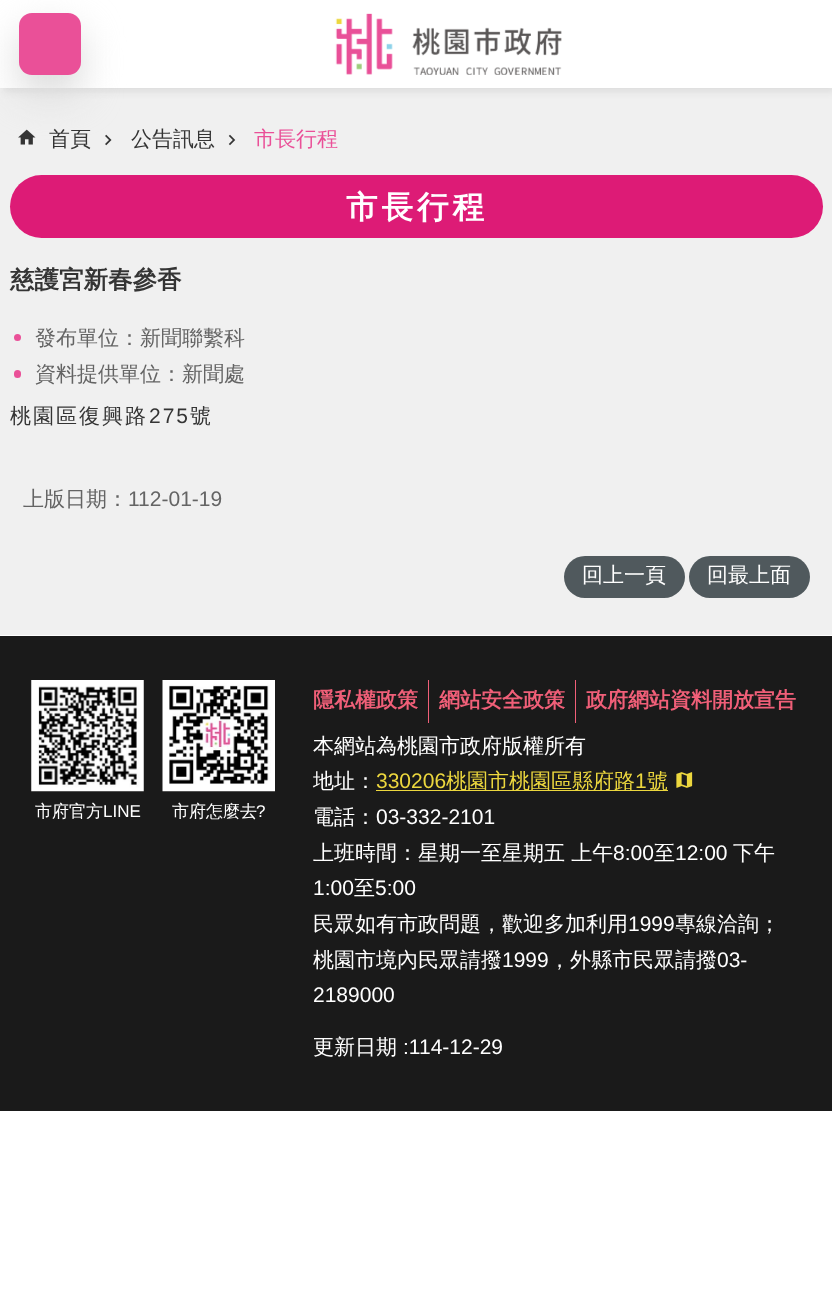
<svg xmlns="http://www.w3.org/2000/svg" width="832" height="1294">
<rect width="100%" height="100%" fill="#fff"/>
<rect y="88" width="832" height="547" fill="#f0f0f0"/>
<rect x="4" y="4" width="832" height="87" fill="#1a1a1a1a" filter="blur(4px)"/>
<rect width="832" height="88" fill="#fff"/>
<image x="18" y="129" width="18" height="16" href="media/2.png"/>
<image x="105" y="134" width="7" height="12" href="media/3.png"/>
<rect x="19" y="31" width="62" height="63" rx="13" fill="#dadada" filter="blur(19px)"/>
<rect x="19" y="13" width="62" height="62" rx="13" fill="#ea5098"/>
<image x="335" y="13" width="227" height="62" href="media/1.png"/>
<text x="49" y="146" style="font-family:WenQuanYi Zen Hei;font-size:21px;font-weight:500;fill:#343434">首頁</text>
<text x="131" y="146" style="font-family:WenQuanYi Zen Hei;font-size:21px;font-weight:500;fill:#343434">公告訊息</text>
<image x="228" y="134" width="8" height="12" href="media/4.png"/>
<text x="254" y="146" style="font-family:WenQuanYi Zen Hei;font-size:21px;font-weight:500;fill:#ea5098">市長行程</text>
<rect x="10" y="175" width="813" height="63" rx="31.5" fill="#dd1b76"/>
<text x="346" y="218" style="font-family:WenQuanYi Zen Hei;font-size:31.5px;font-weight:bold;letter-spacing:4px;fill:#fff">市長行程</text>
<text x="10" y="288" style="font-family:WenQuanYi Zen Hei;font-size:24.5px;font-weight:bold;fill:#343434">慈護宮新春參香</text>
<circle cx="17.5" cy="337.5" r="3.5" fill="#ea5098"/>
<text x="35" y="345" style="font-family:WenQuanYi Zen Hei;font-size:21px;font-weight:500;fill:#646464">發布單位：新聞聯繫科</text>
<rect x="14" y="370" width="7" height="8" rx="3.5" fill="#ea5098"/>
<text x="35" y="381" style="font-family:WenQuanYi Zen Hei;font-size:21px;font-weight:500;fill:#646464">資料提供單位：新聞處</text>
<text x="10" y="423" style="font-family:WenQuanYi Zen Hei;font-size:21px;font-weight:500;letter-spacing:2px;fill:#343434">桃園區復興路</text>
<text x="149" y="423" style="font-family:Liberation Sans;font-size:21px;letter-spacing:2px;fill:#343434">275</text>
<text x="190" y="423" style="font-family:WenQuanYi Zen Hei;font-size:21px;font-weight:500;letter-spacing:2px;fill:#343434">號</text>
<text x="23" y="506" style="font-family:WenQuanYi Zen Hei;font-size:21px;font-weight:500;fill:#646464">上版日期：</text>
<text x="128" y="506" style="font-family:Liberation Sans;font-size:21px;fill:#646464">112-01-19</text>
<rect x="564" y="556" width="121" height="42" rx="21" fill="#50595d"/>
<text x="582" y="582" style="font-family:WenQuanYi Zen Hei;font-size:21px;font-weight:500;fill:#fff">回上一頁</text>
<rect x="689" y="556" width="121" height="42" rx="21" fill="#50595d"/>
<text x="707" y="582" style="font-family:WenQuanYi Zen Hei;font-size:21px;font-weight:500;fill:#fff">回最上面</text>
<rect y="636" width="832" height="475" fill="#1a1a1a"/>
<image x="31" y="680" width="113" height="112" href="media/5.png"/>
<text x="35" y="817" style="font-family:WenQuanYi Zen Hei;font-size:17px;font-weight:500;fill:#fff">市府官方</text>
<text x="103" y="817" style="font-family:Liberation Sans;font-size:17px;fill:#fff">LINE</text>
<image x="162" y="680" width="113" height="112" href="media/6.png"/>
<text x="172" y="817" style="font-family:WenQuanYi Zen Hei;font-size:17px;font-weight:500;fill:#fff">市府怎麼去</text>
<text x="256" y="817" style="font-family:Liberation Sans;font-size:17px;fill:#fff">?</text>
<text x="313" y="707" style="font-family:WenQuanYi Zen Hei;font-size:21px;font-weight:bold;fill:#f05f78">隱私權政策</text>
<rect x="428" y="680" width="1" height="43" fill="#f05f78"/>
<text x="439" y="707" style="font-family:WenQuanYi Zen Hei;font-size:21px;font-weight:bold;fill:#f05f78">網站安全政策</text>
<rect x="575" y="680" width="1" height="43" fill="#f05f78"/>
<text x="586" y="707" style="font-family:WenQuanYi Zen Hei;font-size:21px;font-weight:bold;fill:#f05f78">政府網站資料開放宣告</text>
<text x="313" y="753" style="font-family:WenQuanYi Zen Hei;font-size:21px;font-weight:500;fill:#fff">本網站為桃園市政府版權所有</text>
<text x="313" y="788" style="font-family:WenQuanYi Zen Hei;font-size:21px;font-weight:500;fill:#fff">地址：</text>
<text x="376" y="788" style="font-family:Liberation Sans;font-size:21px;fill:#ecd73e">330206</text>
<rect x="376" y="790" width="292" height="1" fill="#ecd73e"/>
<text x="446" y="788" style="font-family:WenQuanYi Zen Hei;font-size:21px;font-weight:500;fill:#ecd73e">桃園市桃園區縣府路</text>
<text x="635" y="788" style="font-family:Liberation Sans;font-size:21px;fill:#ecd73e">1</text>
<text x="647" y="788" style="font-family:WenQuanYi Zen Hei;font-size:21px;font-weight:500;fill:#ecd73e">號</text>
<image x="676" y="772" width="17" height="16" href="media/7.png"/>
<text x="313" y="824" style="font-family:WenQuanYi Zen Hei;font-size:21px;font-weight:500;fill:#fff">電話：</text>
<text x="376" y="824" style="font-family:Liberation Sans;font-size:21px;fill:#fff">03-332-2101</text>
<text x="313" y="860" style="font-family:WenQuanYi Zen Hei;font-size:21px;font-weight:500;fill:#fff">上班時間：星期一至星期五 上午</text>
<text x="613" y="860" style="font-family:Liberation Sans;font-size:21px;fill:#fff">8:00</text>
<text x="654" y="860" style="font-family:WenQuanYi Zen Hei;font-size:21px;font-weight:500;fill:#fff">至</text>
<text x="675" y="860" style="font-family:Liberation Sans;font-size:21px;fill:#fff">12:00</text>
<text x="733" y="860" style="font-family:WenQuanYi Zen Hei;font-size:21px;font-weight:500;fill:#fff">下午</text>
<text x="313" y="895" style="font-family:Liberation Sans;font-size:21px;fill:#fff">1:00</text>
<text x="354" y="895" style="font-family:WenQuanYi Zen Hei;font-size:21px;font-weight:500;fill:#fff">至</text>
<text x="375" y="895" style="font-family:Liberation Sans;font-size:21px;fill:#fff">5:00</text>
<text x="313" y="931" style="font-family:WenQuanYi Zen Hei;font-size:21px;font-weight:500;fill:#fff">民眾如有市政問題，歡迎多加利用</text>
<text x="628" y="931" style="font-family:Liberation Sans;font-size:21px;fill:#fff">1999</text>
<text x="675" y="931" style="font-family:WenQuanYi Zen Hei;font-size:21px;font-weight:500;fill:#fff">專線洽詢；</text>
<text x="313" y="967" style="font-family:WenQuanYi Zen Hei;font-size:21px;font-weight:500;fill:#fff">桃園市境內民眾請撥</text>
<text x="502" y="967" style="font-family:Liberation Sans;font-size:21px;fill:#fff">1999</text>
<text x="549" y="967" style="font-family:WenQuanYi Zen Hei;font-size:21px;font-weight:500;fill:#fff">，外縣市民眾請撥</text>
<text x="717" y="967" style="font-family:Liberation Sans;font-size:21px;fill:#fff">03-</text>
<text x="313" y="1002" style="font-family:Liberation Sans;font-size:21px;fill:#fff">2189000</text>
<text x="313" y="1054" style="font-family:WenQuanYi Zen Hei;font-size:21px;font-weight:500;fill:#fff">更新日期</text>
<text x="403" y="1054" style="font-family:Liberation Sans;font-size:21px;fill:#fff">:114-12-29</text>
</svg>
